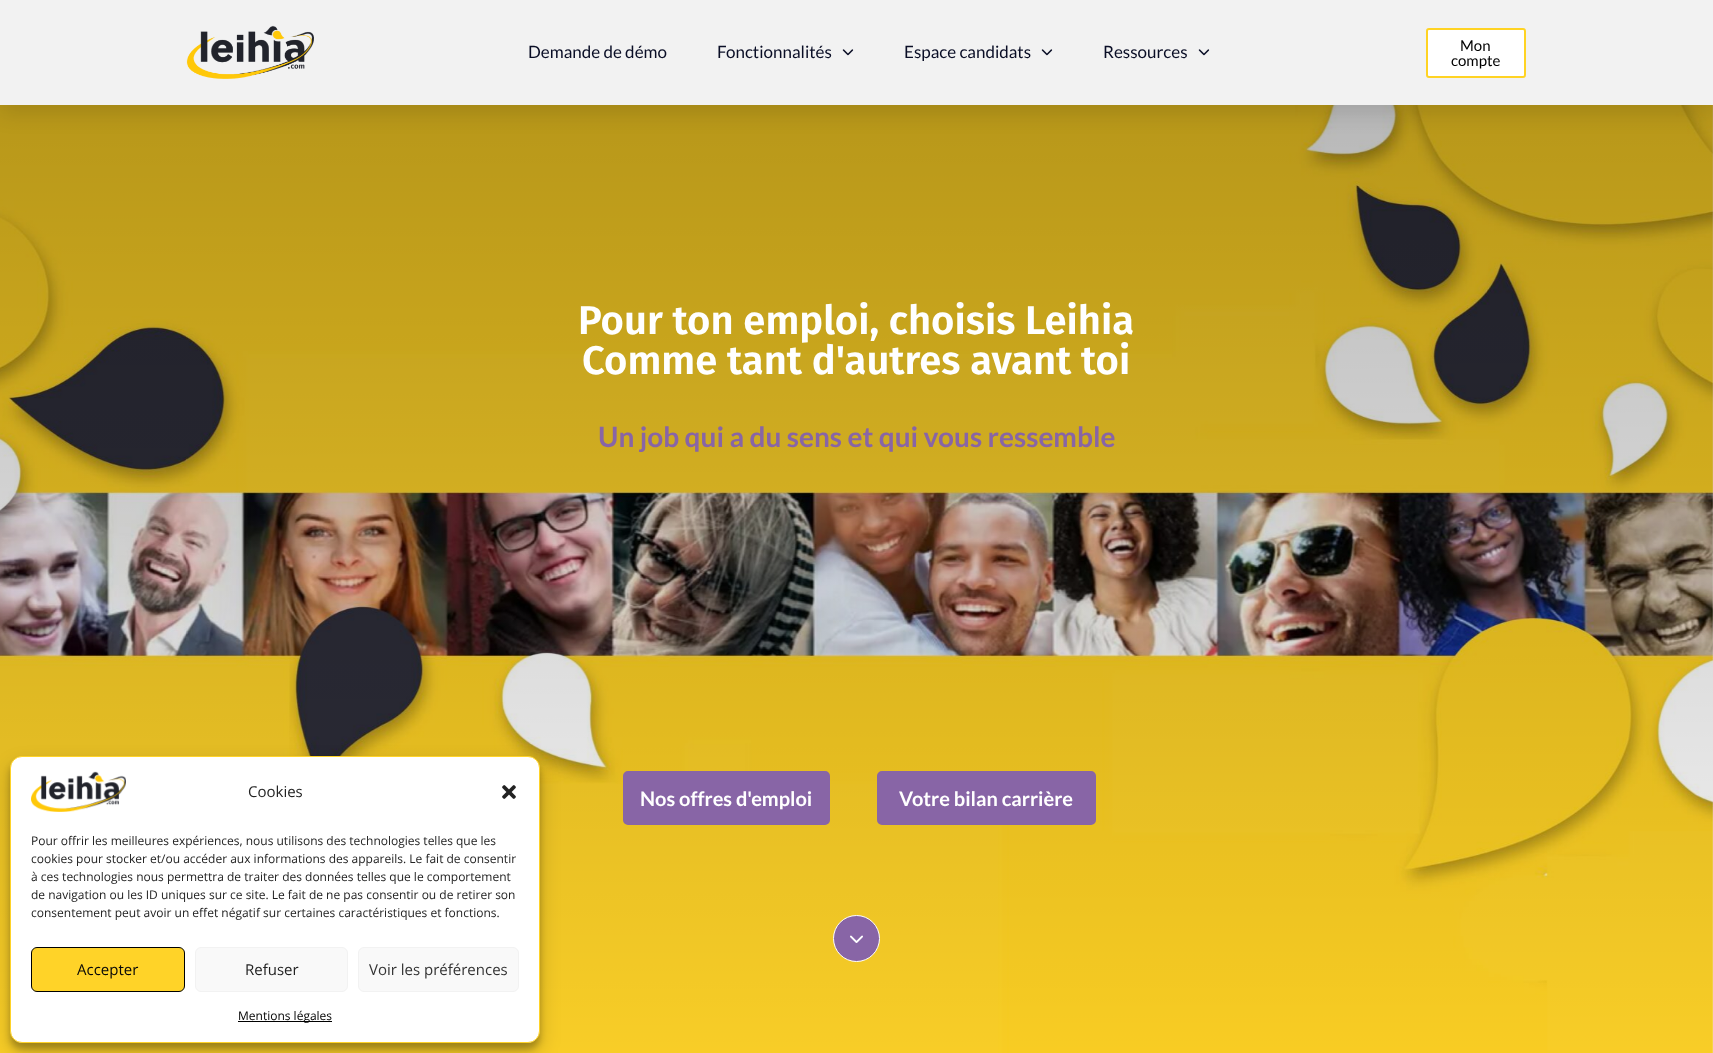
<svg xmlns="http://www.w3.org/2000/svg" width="1713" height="1053">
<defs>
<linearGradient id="g1" gradientUnits="userSpaceOnUse" x1="856" y1="105" x2="857" y2="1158"><stop offset="0" stop-color="#000" stop-opacity="0.28"/><stop offset="1" stop-color="#000" stop-opacity="0"/></linearGradient>
</defs>
<rect width="100%" height="100%" fill="#fff"/>
<image x="0" y="105" width="1713" height="948" href="media/3.png"/>
<rect y="105" width="1713" height="948" fill="url(#g1)"/>
<rect y="10" width="1713" height="105" fill="#0000001a" filter="blur(10px)"/>
<rect width="1713" height="105" fill="#f2f2f2"/>
<image x="186" y="25" width="128" height="54" href="media/1.png"/>
<text x="528" y="58" style="font-family:Lato;font-size:17px;fill:#0a0e26">Demande de démo</text>
<text x="717" y="58" style="font-family:Lato;font-size:17px;fill:#0a0e26">Fonctionnalités</text>
<image x="842" y="49" width="12" height="7" href="media/2.png"/>
<text x="904" y="58" style="font-family:Lato;font-size:17px;fill:#0a0e26">Espace candidats</text>
<image x="1041" y="49" width="12" height="7" href="media/2.png"/>
<text x="1103" y="58" style="font-family:Lato;font-size:17px;fill:#0a0e26">Ressources</text>
<image x="1198" y="49" width="12" height="7" href="media/2.png"/>
<rect x="1427" y="29" width="98" height="48" rx="2" fill="#fff" stroke="#ffd323" stroke-width="2"/>
<text x="1460" y="51" style="font-family:Lato;font-size:15px;fill:#000">Mon</text>
<text x="1451" y="66" style="font-family:Lato;font-size:15px;fill:#000">compte</text>
<text x="578" y="334" style="font-family:Fira Sans;font-size:40px;font-weight:600;fill:#fff">Pour ton emploi, choisis Leihia</text>
<text x="582" y="374" style="font-family:Fira Sans;font-size:40px;font-weight:600;fill:#fff">Comme tant d'autres avant toi</text>
<text x="598" y="447" style="font-family:Lato;font-size:28px;font-weight:bold;fill:#8865a6">Un job qui a du sens et qui vous ressemble</text>
<rect x="624" y="772" width="205" height="52" rx="4" fill="#8865a6" stroke="#8865a6" stroke-width="2"/>
<text x="640" y="806" style="font-family:Lato;font-size:20px;font-weight:bold;fill:#fff">Nos offres d'emploi</text>
<rect x="878" y="772" width="217" height="52" rx="4" fill="#8865a6" stroke="#8865a6" stroke-width="2"/>
<text x="899" y="806" style="font-family:Lato;font-size:20px;font-weight:bold;fill:#fff">Votre bilan carrière</text>
<circle cx="856.5" cy="938.5" r="23" fill="#8865a6" stroke="#fff"/>
<image x="850" y="935" width="13" height="8" href="media/4.png"/>
<rect x="10" y="762" width="530" height="287" rx="12" fill="#0000003b" filter="blur(3px)"/>
<rect x="10" y="766" width="530" height="287" rx="12" fill="#00000030" filter="blur(10px)"/>
<rect x="10.5" y="756.5" width="529" height="286" rx="11.5" fill="#fff" stroke="#ffd328"/>
<image x="31" y="771" width="95" height="41" href="media/5.png"/>
<text x="248" y="797" style="font-family:Open Sans;font-size:15px;fill:#222">Cookies</text>
<image x="502" y="785" width="14" height="14" href="media/6.png"/>
<text x="31" y="845" style="font-family:Open Sans;font-size:12px;fill:#222">Pour offrir les meilleures expériences, nous utilisons des technologies telles que les</text>
<text x="31" y="863" style="font-family:Open Sans;font-size:12px;fill:#222">cookies pour stocker et/ou accéder aux informations des appareils. Le fait de consentir</text>
<text x="31" y="881" style="font-family:Open Sans;font-size:12px;fill:#222">à ces technologies nous permettra de traiter des données telles que le comportement</text>
<text x="31" y="899" style="font-family:Open Sans;font-size:12px;fill:#222">de navigation ou les ID uniques sur ce site. Le fait de ne pas consentir ou de retirer son</text>
<text x="31" y="917" style="font-family:Open Sans;font-size:12px;fill:#222">consentement peut avoir un effet négatif sur certaines caractéristiques et fonctions.</text>
<rect x="31.5" y="947.5" width="153" height="44" rx="5.5" fill="#ffd328" stroke="#000"/>
<text x="77" y="975" style="font-family:Open Sans;font-size:15px;fill:#080808">Accepter</text>
<rect x="195.5" y="947.5" width="152" height="44" rx="5.5" fill="#f9f9f9" stroke="#f2f2f2"/>
<text x="245" y="975" style="font-family:Open Sans;font-size:15px;fill:#222">Refuser</text>
<rect x="358.5" y="947.5" width="160" height="44" rx="5.5" fill="#f9f9f9" stroke="#f2f2f2"/>
<text x="369" y="975" style="font-family:Open Sans;font-size:15px;fill:#333">Voir les préférences</text>
<rect x="238" y="1021" width="94" height="1" fill="#000"/>
<text x="238" y="1020" style="font-family:Open Sans;font-size:12px;fill:#000">Mentions légales</text>
</svg>
